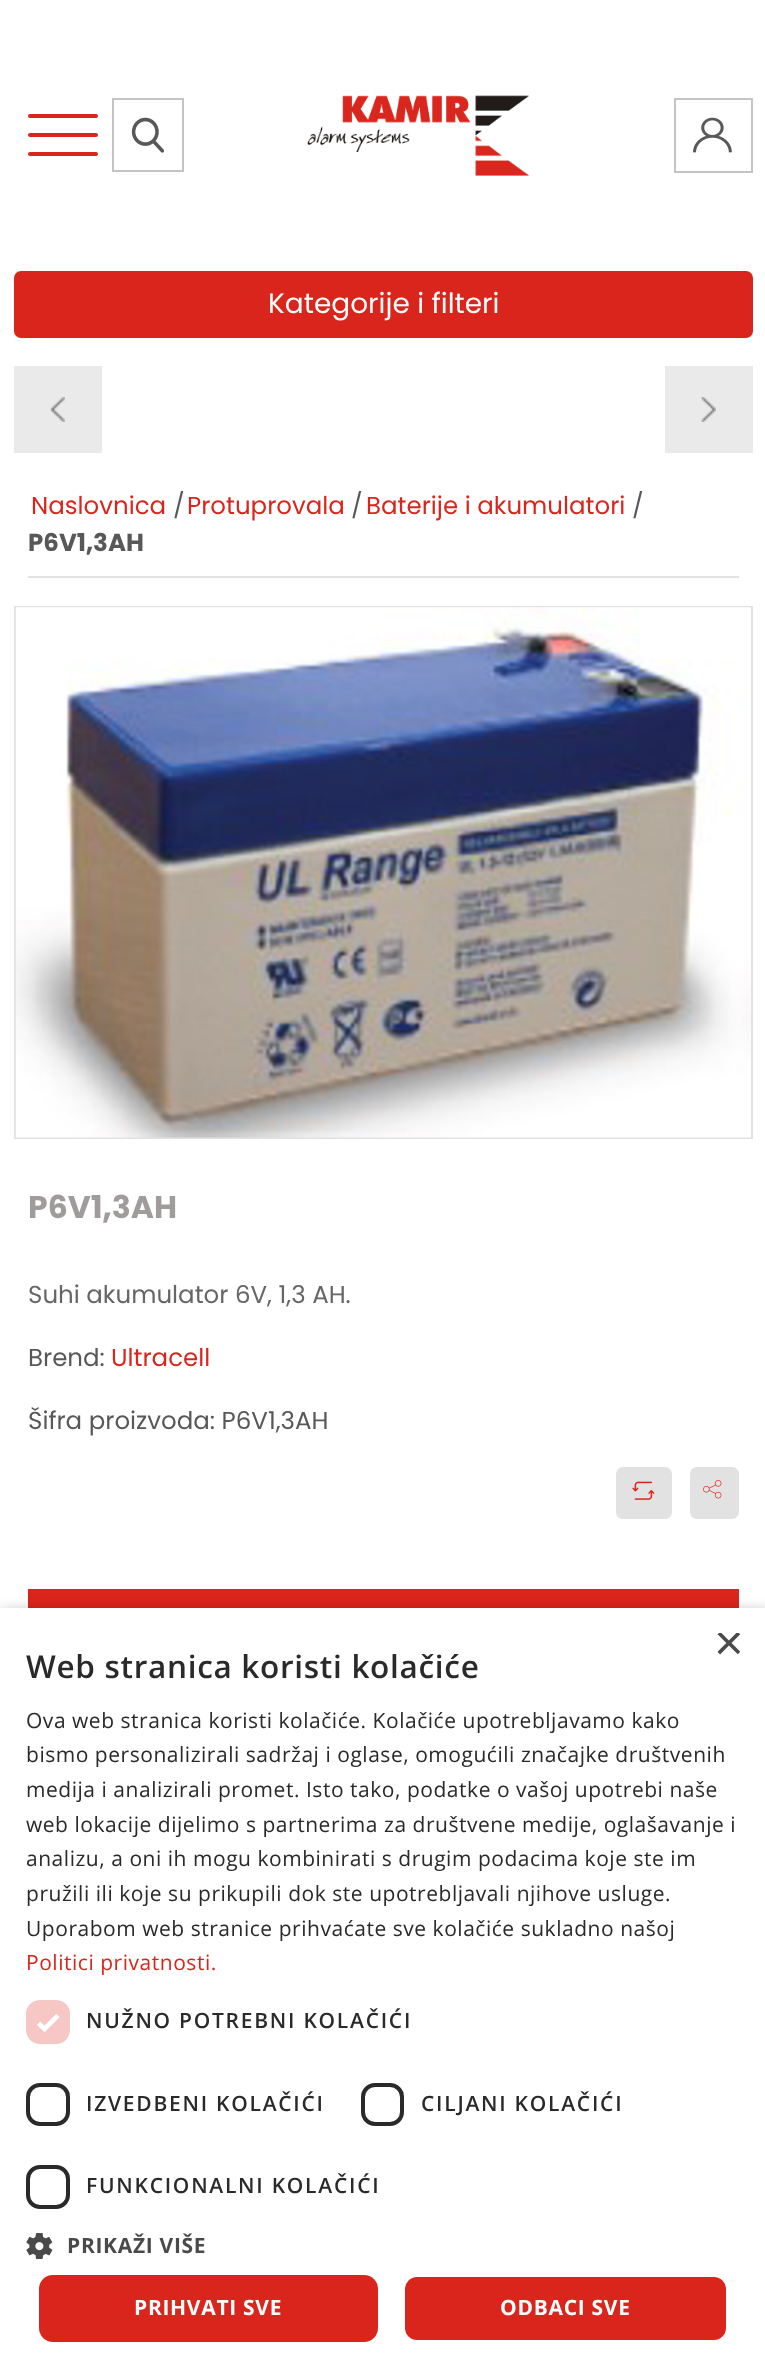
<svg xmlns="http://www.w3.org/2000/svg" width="765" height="2376">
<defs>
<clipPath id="clip1"><rect x="714" y="1633" width="26" height="26"/></clipPath>
</defs>
<rect width="100%" height="100%" fill="#fff"/>
<rect x="28" y="114" width="70" height="4" rx="2" fill="#da251c"/>
<rect x="28" y="133" width="70" height="4" rx="2" fill="#da251c"/>
<rect x="28" y="152" width="70" height="4" rx="2" fill="#da251c"/>
<rect x="113" y="99" width="70" height="72" fill="none" stroke="#c4c4c4" stroke-width="2"/>
<image x="131" y="117" width="34" height="36" href="media/1.png"/>
<image x="307" y="95" width="223" height="81" href="media/2.png"/>
<rect x="675" y="99" width="77" height="73" fill="none" stroke="#c4c4c4" stroke-width="2"/>
<image x="693" y="117" width="39" height="36" href="media/3.png"/>
<rect x="15" y="272" width="737" height="65" rx="6" fill="#da251c" stroke="#da251c" stroke-width="2"/>
<text x="268" y="313" style="font-family:Poppins;font-size:28px;fill:#fff">Kategorije i filteri</text>
<rect x="14" y="366" width="88" height="87" fill="#eaeaea"/>
<image x="50" y="397" width="15" height="25" href="media/4.png"/>
<rect x="665" y="366" width="88" height="87" fill="#eaeaea"/>
<image x="701" y="397" width="15" height="25" href="media/5.png"/>
<rect x="28" y="576" width="711" height="2" fill="#e2e2e2"/>
<text x="31" y="514" style="font-family:Poppins;font-size:24.5px;fill:#da251c">Naslovnica</text>
<text x="173" y="514" style="font-family:Poppins;font-size:24.5px;fill:#585858">/</text>
<text x="187" y="514" style="font-family:Poppins;font-size:24.5px;fill:#da251c">Protuprovala</text>
<text x="351" y="514" style="font-family:Poppins;font-size:24.5px;fill:#585858">/</text>
<text x="366" y="514" style="font-family:Poppins;font-size:24.5px;fill:#da251c">Baterije i akumulatori</text>
<text x="632" y="514" style="font-family:Poppins;font-size:24.5px;fill:#585858">/</text>
<text x="28" y="551" style="font-family:Poppins;font-size:24.5px;font-weight:bold;fill:#585858">P6V1,3AH</text>
<rect x="15" y="607" width="737" height="531" fill="none" stroke="#e2e2e2" stroke-width="2"/>
<image x="15" y="607" width="736" height="531" href="media/6.png"/>
<text x="28" y="1218" style="font-family:Poppins;font-size:31.5px;font-weight:bold;fill:#a09c9c">P6V1,3AH</text>
<text x="28" y="1303" style="font-family:Poppins;font-size:24.5px;fill:#666">Suhi akumulator 6V, 1,3 AH.</text>
<text x="28" y="1366" style="font-family:Poppins;font-size:24.5px;fill:#585858">Brend:</text>
<text x="111" y="1366" style="font-family:Poppins;font-size:24.5px;fill:#da251c">Ultracell</text>
<text x="28" y="1429" style="font-family:Poppins;font-size:24.5px;fill:#585858">Šifra proizvoda: P6V1,3AH</text>
<rect x="616" y="1467" width="56" height="52" rx="7" fill="#e2e2e2"/>
<image x="632" y="1481" width="23" height="19" href="media/7.png"/>
<rect x="690" y="1467" width="49" height="52" rx="7" fill="#e2e2e2"/>
<image x="703" y="1480" width="19" height="19" href="media/8.png"/>
<rect x="28" y="1589" width="711" height="19" fill="#da251c"/>
<rect x="2" y="1612" width="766" height="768" fill="#00000059" filter="blur(7px)"/>
<rect y="1608" width="765" height="768" fill="#fff"/>
<g clip-path="url(#clip1)">
<text x="714" y="1660" style="font-family:Liberation Sans;font-size:51px;fill:#4a4a4a">×</text>
</g>
<text x="26" y="1678" style="font-family:Open Sans;font-size:31.5px;font-weight:600;letter-spacing:0.7px;fill:#2a2a2a">Web stranica koristi kolačiće</text>
<text x="26" y="1728" style="font-family:Open Sans;font-size:21px;letter-spacing:0.53px;fill:#2a2a2a">Ova web stranica koristi kolačiće. Kolačiće upotrebljavamo kako</text>
<text x="26" y="1762" style="font-family:Open Sans;font-size:21px;letter-spacing:0.53px;fill:#2a2a2a">bismo personalizirali sadržaj i oglase, omogućili značajke društvenih</text>
<text x="26" y="1797" style="font-family:Open Sans;font-size:21px;letter-spacing:0.53px;fill:#2a2a2a">medija i analizirali promet. Isto tako, podatke o vašoj upotrebi naše</text>
<text x="26" y="1832" style="font-family:Open Sans;font-size:21px;letter-spacing:0.53px;fill:#2a2a2a">web lokacije dijelimo s partnerima za društvene medije, oglašavanje i</text>
<text x="26" y="1866" style="font-family:Open Sans;font-size:21px;letter-spacing:0.53px;fill:#2a2a2a">analizu, a oni ih mogu kombinirati s drugim podacima koje ste im</text>
<text x="26" y="1901" style="font-family:Open Sans;font-size:21px;letter-spacing:0.53px;fill:#2a2a2a">pružili ili koje su prikupili dok ste upotrebljavali njihove usluge.</text>
<text x="26" y="1936" style="font-family:Open Sans;font-size:21px;letter-spacing:0.53px;fill:#2a2a2a">Uporabom web stranice prihvaćate sve kolačiće sukladno našoj</text>
<text x="26" y="1970" style="font-family:Open Sans;font-size:21px;letter-spacing:0.53px;fill:#da251c">Politici privatnosti.</text>
<rect x="26" y="2000" width="44" height="44" rx="14" fill="#f6c7c5"/>
<path d="M38.5 2023l6 6l13.5-13.5" fill="none" stroke="#fff" stroke-width="4.6"/>
<text x="86" y="2028" style="font-family:Open Sans;font-size:21px;font-weight:600;letter-spacing:1.75px;fill:#2a2a2a">NUŽNO POTREBNI KOLAČIĆI</text>
<rect x="28" y="2085" width="40" height="39" rx="12" fill="none" stroke="#2a2a2a" stroke-width="4"/>
<text x="86" y="2111" style="font-family:Open Sans;font-size:21px;font-weight:600;letter-spacing:1.75px;fill:#2a2a2a">IZVEDBENI KOLAČIĆI</text>
<rect x="363" y="2085" width="39" height="39" rx="12" fill="none" stroke="#2a2a2a" stroke-width="4"/>
<text x="421" y="2111" style="font-family:Open Sans;font-size:21px;font-weight:600;letter-spacing:1.75px;fill:#2a2a2a">CILJANI KOLAČIĆI</text>
<rect x="28" y="2167" width="40" height="40" rx="12" fill="none" stroke="#2a2a2a" stroke-width="4"/>
<text x="86" y="2193" style="font-family:Open Sans;font-size:21px;font-weight:600;letter-spacing:1.75px;fill:#2a2a2a">FUNKCIONALNI KOLAČIĆI</text>
<image x="26" y="2233" width="27" height="26" href="media/9.png"/>
<text x="67" y="2253" style="font-family:Open Sans;font-size:21px;font-weight:bold;letter-spacing:0.7px;fill:#4a4a4a">PRIKAŽI VIŠE</text>
<rect x="39" y="2275" width="339" height="67" rx="14" fill="#da251c"/>
<text x="134" y="2315" style="font-family:Open Sans;font-size:21px;font-weight:bold;letter-spacing:0.7px;fill:#fff">PRIHVATI SVE</text>
<rect x="404" y="2276" width="323" height="65" rx="13" fill="#da251c" stroke="#fff" stroke-width="2"/>
<text x="500" y="2315" style="font-family:Open Sans;font-size:21px;font-weight:bold;letter-spacing:0.7px;fill:#fff">ODBACI SVE</text>
</svg>
